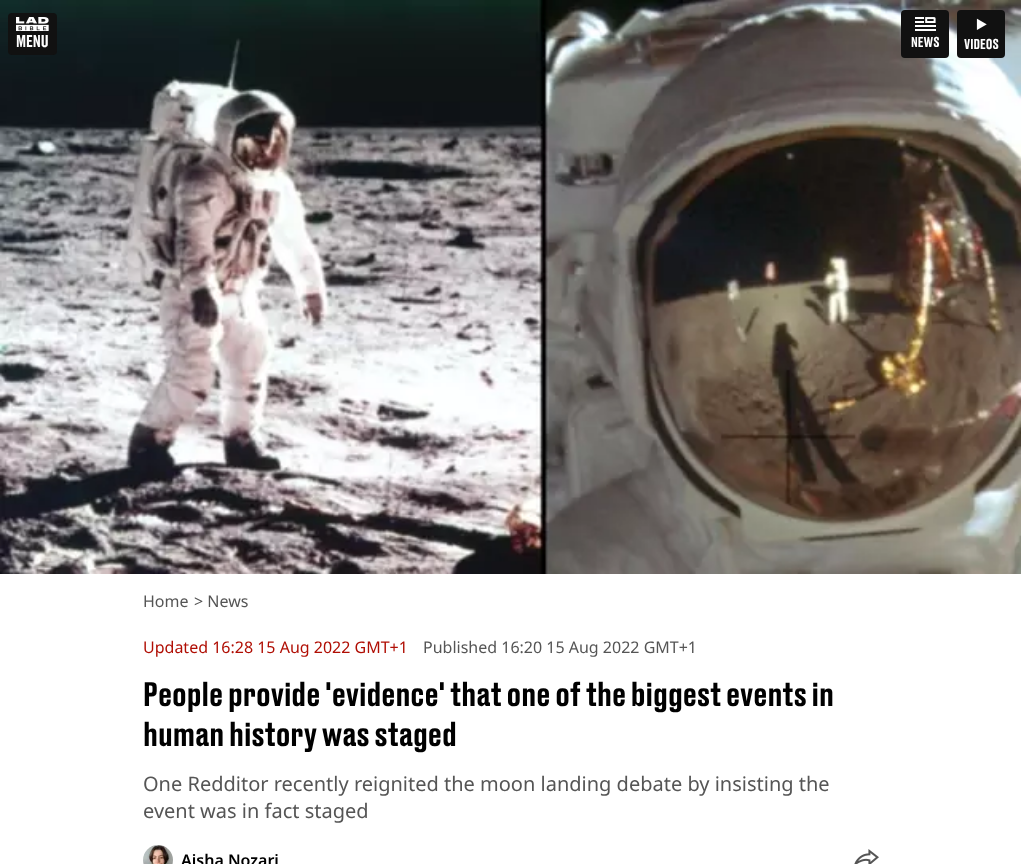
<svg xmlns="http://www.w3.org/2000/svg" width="1021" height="864">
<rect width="100%" height="100%" fill="#fff"/>
<image x="0" y="0" width="1021" height="574" href="media/4.png"/>
<rect x="8" y="13" width="49" height="42" rx="4" fill="#111"/>
<image x="16" y="17" width="33" height="14" href="media/1.png"/>
<text x="16" y="47" style="font-family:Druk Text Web;font-size:16px;font-weight:500;fill:#fff">MENU</text>
<rect x="901" y="10" width="48" height="48" rx="4" fill="#111"/>
<image x="915" y="17" width="21" height="14" href="media/2.png"/>
<text x="911" y="47" style="font-family:Druk Text Web;font-size:13.5px;font-weight:500;fill:#fff">NEWS</text>
<rect x="957" y="10" width="48" height="48" rx="4" fill="#111"/>
<image x="976" y="18" width="11" height="12" href="media/3.png"/>
<text x="964" y="49" style="font-family:Druk Text Web;font-size:13.5px;font-weight:500;fill:#fff">VIDEOS</text>
<text x="143" y="607" style="font-family:Noto Sans;font-size:16px;fill:#555">Home</text>
<text x="194" y="607" style="font-family:Noto Sans;font-size:16px;fill:#555">&gt; News</text>
<text x="143" y="653" style="font-family:Noto Sans;font-size:16px;fill:#b00e04">Updated 16:28 15 Aug 2022 GMT+1</text>
<text x="423" y="653" style="font-family:Noto Sans;font-size:16px;fill:#555">Published 16:20 15 Aug 2022 GMT+1</text>
<text x="143" y="706" style="font-family:Druk Text Web;font-size:32px;font-weight:500;fill:#000">People provide 'evidence' that one of the biggest events in</text>
<text x="143" y="746" style="font-family:Druk Text Web;font-size:32px;font-weight:500;fill:#000">human history was staged</text>
<text x="143" y="791" style="font-family:Noto Sans;font-size:20px;fill:#555">One Redditor recently reignited the moon landing debate by insisting the</text>
<text x="143" y="818" style="font-family:Noto Sans;font-size:20px;fill:#555">event was in fact staged</text>
<image x="143" y="845" width="30" height="19" href="media/5.png"/>
<text x="181" y="866" style="font-family:Noto Sans;font-size:16px;font-weight:600;fill:#000">Aisha Nozari</text>
<image x="854" y="849" width="25" height="15" href="media/6.png"/>
</svg>
